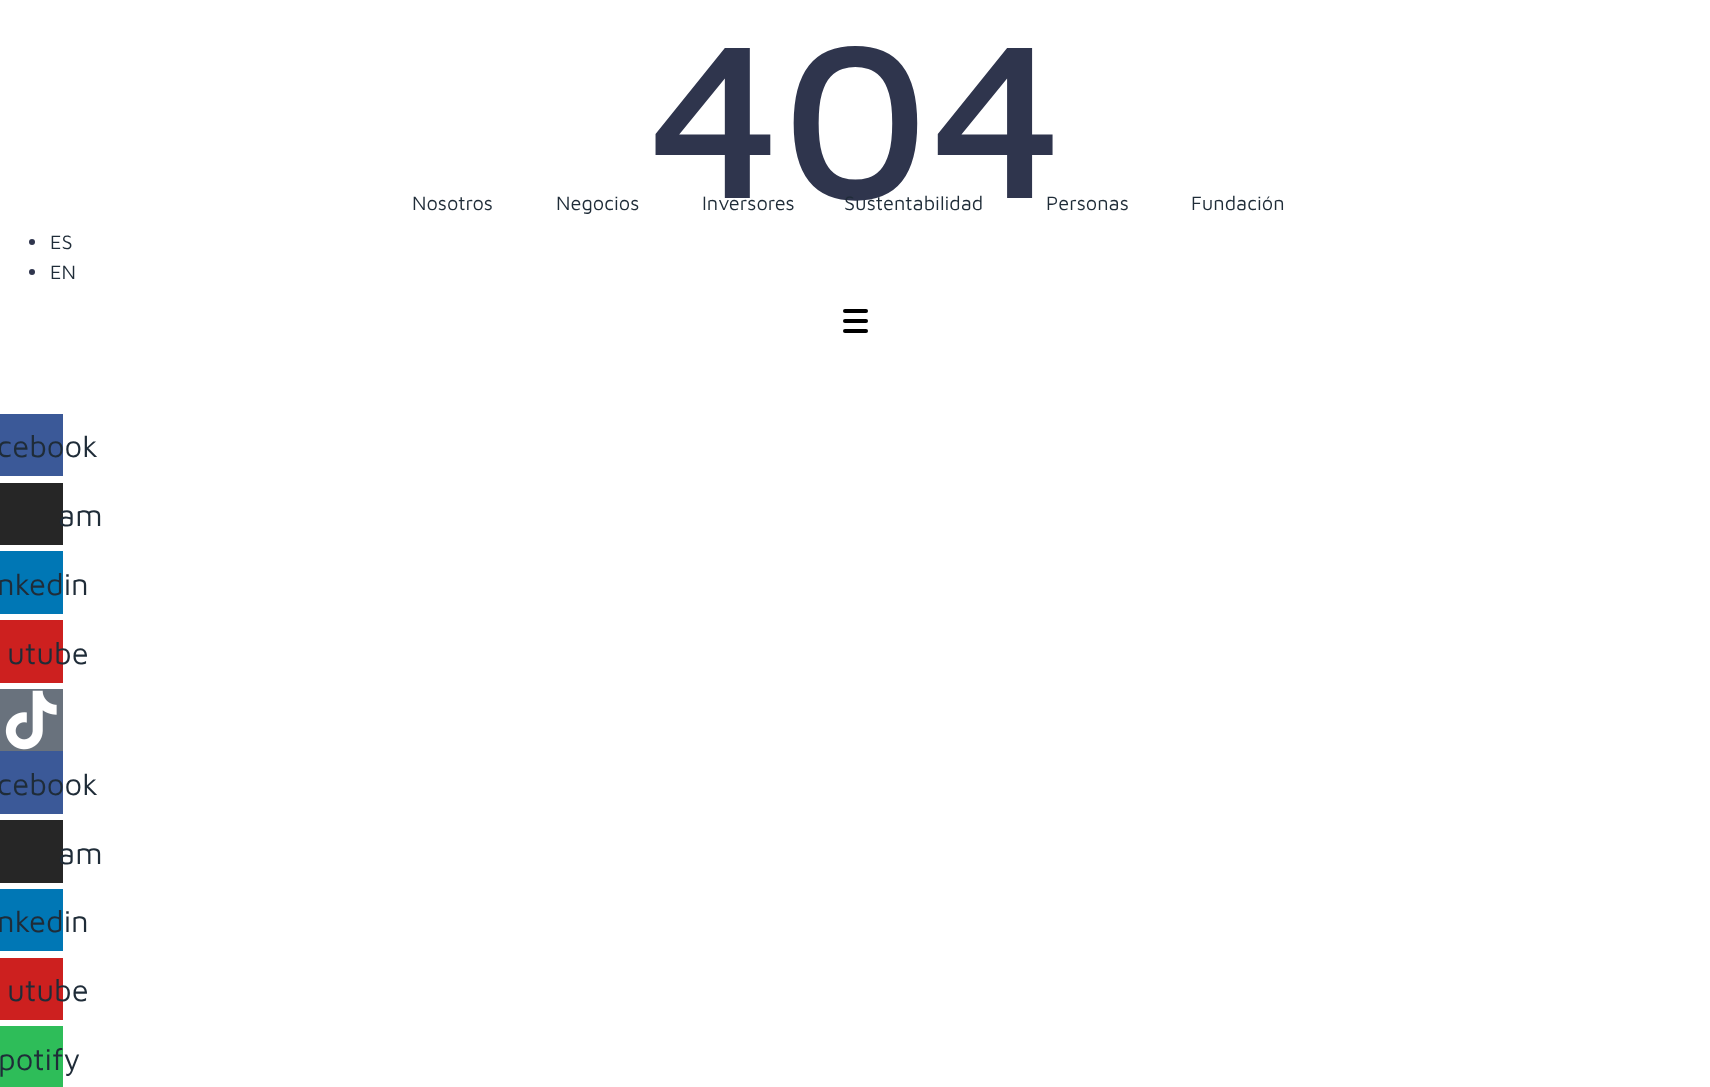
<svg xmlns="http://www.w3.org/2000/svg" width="1710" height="1087">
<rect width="100%" height="100%" fill="#fff"/>
<text x="647" y="198" style="font-family:Maven Pro;font-size:225px;font-weight:500;fill:#2f354d">404</text>
<text x="412" y="210" style="font-family:Maven Pro;font-size:20px;fill:#1f2c38">Nosotros</text>
<text x="556" y="210" style="font-family:Maven Pro;font-size:20px;fill:#1f2c38">Negocios</text>
<text x="702" y="210" style="font-family:Maven Pro;font-size:20px;fill:#1f2c38">Inversores</text>
<text x="844" y="210" style="font-family:Maven Pro;font-size:20px;fill:#1f2c38">Sustentabilidad</text>
<text x="1046" y="210" style="font-family:Maven Pro;font-size:20px;fill:#1f2c38">Personas</text>
<text x="1191" y="210" style="font-family:Maven Pro;font-size:20px;fill:#1f2c38">Fundación</text>
<circle cx="32" cy="242" r="3" fill="#2f354d"/>
<text x="50" y="249" style="font-family:Maven Pro;font-size:20px;fill:#1f2c38">ES</text>
<circle cx="32" cy="272" r="3" fill="#2f354d"/>
<text x="50" y="279" style="font-family:Maven Pro;font-size:20px;fill:#1f2c38">EN</text>
<rect x="843" y="319" width="25" height="4" rx="2" fill="#000"/>
<rect x="843" y="309" width="25" height="4" rx="2" fill="#000"/>
<rect x="843" y="329" width="25" height="4" rx="2" fill="#000"/>
<rect y="414" width="63" height="62" fill="#3b5998"/>
<text x="-3" y="457" style="font-family:Maven Pro;font-size:31px;fill:#1f2c38">cebook</text>
<rect y="483" width="63" height="62" fill="#262626"/>
<text x="58" y="526" style="font-family:Maven Pro;font-size:31px;fill:#1f2c38">am</text>
<rect y="551" width="63" height="63" fill="#0077b5"/>
<text x="-3" y="595" style="font-family:Maven Pro;font-size:31px;fill:#1f2c38">nkedin</text>
<rect y="620" width="63" height="63" fill="#cd201f"/>
<text x="7" y="664" style="font-family:Maven Pro;font-size:31px;fill:#1f2c38">utube</text>
<rect y="689" width="63" height="62" fill="#69727d"/>
<image x="5" y="690" width="52" height="60" href="media/1.png"/>
<rect y="751" width="63" height="63" fill="#3b5998"/>
<text x="-3" y="795" style="font-family:Maven Pro;font-size:31px;fill:#1f2c38">cebook</text>
<rect y="820" width="63" height="63" fill="#262626"/>
<text x="58" y="864" style="font-family:Maven Pro;font-size:31px;fill:#1f2c38">am</text>
<rect y="889" width="63" height="62" fill="#0077b5"/>
<text x="-3" y="932" style="font-family:Maven Pro;font-size:31px;fill:#1f2c38">nkedin</text>
<rect y="958" width="63" height="62" fill="#cd201f"/>
<text x="7" y="1001" style="font-family:Maven Pro;font-size:31px;fill:#1f2c38">utube</text>
<rect y="1026" width="63" height="61" fill="#2ebd59"/>
<text x="-2" y="1070" style="font-family:Maven Pro;font-size:31px;fill:#1f2c38">potify</text>
</svg>
